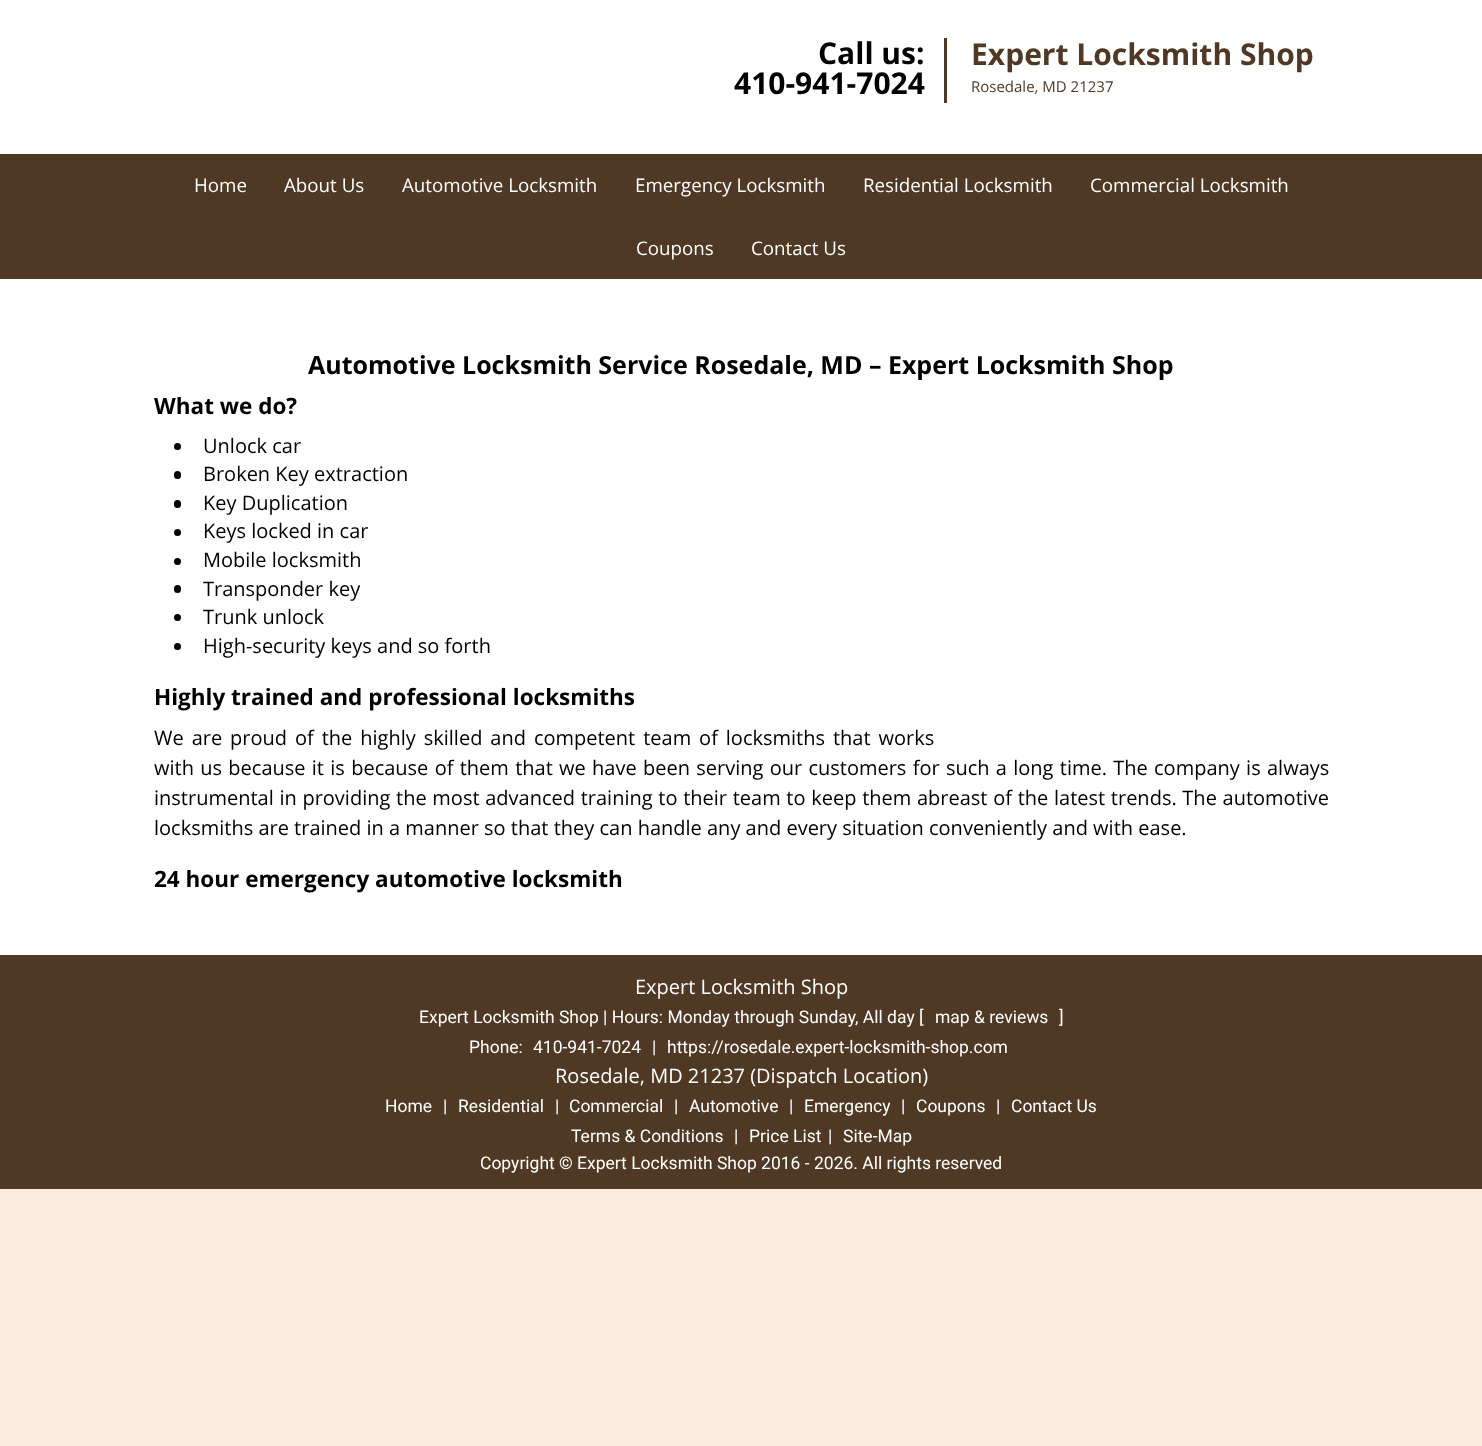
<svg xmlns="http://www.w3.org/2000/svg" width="1482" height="1446">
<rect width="100%" height="100%" fill="#faebde"/>
<rect width="1482" height="150" fill="#fff"/>
<text x="818" y="64" style="font-family:Open Sans;font-size:30px;font-weight:bold;fill:#000">Call us:</text>
<text x="734" y="94" style="font-family:Open Sans;font-size:30px;font-weight:bold;fill:#000">410-941-7024</text>
<rect x="944" y="38" width="3" height="65" fill="#4f3824"/>
<text x="971" y="65" style="font-family:Open Sans;font-size:30px;font-weight:bold;fill:#4f3824">Expert Locksmith Shop</text>
<text x="971" y="92" style="font-family:Open Sans;font-size:15px;fill:#4f3824">Rosedale, MD 21237</text>
<rect y="154" width="1482" height="125" fill="#4f3824"/>
<rect y="150" width="1482" height="4" fill="#fefefe"/>
<rect y="279" width="1482" height="4" fill="#fefefe"/>
<text x="194" y="192" style="font-family:Open Sans;font-size:18.75px;fill:#fff">Home</text>
<text x="284" y="192" style="font-family:Open Sans;font-size:18.75px;fill:#fff">About Us</text>
<text x="402" y="192" style="font-family:Open Sans;font-size:18.75px;fill:#fff">Automotive Locksmith</text>
<text x="635" y="192" style="font-family:Open Sans;font-size:18.75px;fill:#fff">Emergency Locksmith</text>
<text x="863" y="192" style="font-family:Open Sans;font-size:18.75px;fill:#fff">Residential Locksmith</text>
<text x="1090" y="192" style="font-family:Open Sans;font-size:18.75px;fill:#fff">Commercial Locksmith</text>
<text x="636" y="255" style="font-family:Open Sans;font-size:18.75px;fill:#fff">Coupons</text>
<text x="751" y="255" style="font-family:Open Sans;font-size:18.75px;fill:#fff">Contact Us</text>
<rect y="283" width="1482" height="672" fill="#fff"/>
<text x="308" y="374" style="font-family:Open Sans;font-size:25px;font-weight:bold;fill:#000">Automotive Locksmith Service Rosedale, MD – Expert Locksmith Shop</text>
<text x="154" y="414" style="font-family:Open Sans;font-size:22.5px;font-weight:bold;fill:#000">What we do?</text>
<circle cx="177.5" cy="446.5" r="3.5" fill="#000"/>
<text x="203" y="453" style="font-family:Open Sans;font-size:20px;fill:#000">Unlock car</text>
<rect x="174" y="471" width="7" height="8" rx="3.5" fill="#000"/>
<text x="203" y="481" style="font-family:Open Sans;font-size:20px;fill:#000">Broken Key extraction</text>
<rect x="174" y="500" width="7" height="8" rx="3.5" fill="#000"/>
<text x="203" y="510" style="font-family:Open Sans;font-size:20px;fill:#000">Key Duplication</text>
<circle cx="177.5" cy="532.5" r="3.5" fill="#000"/>
<text x="203" y="538" style="font-family:Open Sans;font-size:20px;fill:#000">Keys locked in car</text>
<circle cx="177.5" cy="561.5" r="3.5" fill="#000"/>
<text x="203" y="567" style="font-family:Open Sans;font-size:20px;fill:#000">Mobile locksmith</text>
<rect x="174" y="585" width="7" height="8" rx="3.5" fill="#000"/>
<text x="203" y="596" style="font-family:Open Sans;font-size:20px;fill:#000">Transponder key</text>
<circle cx="177.5" cy="617.5" r="3.5" fill="#000"/>
<text x="203" y="624" style="font-family:Open Sans;font-size:20px;fill:#000">Trunk unlock</text>
<circle cx="177.5" cy="646.5" r="3.5" fill="#000"/>
<text x="203" y="653" style="font-family:Open Sans;font-size:20px;fill:#000">High-security keys and so forth</text>
<text x="154" y="705" style="font-family:Open Sans;font-size:22.5px;font-weight:bold;fill:#000">Highly trained and professional locksmiths</text>
<text x="154" y="745" word-spacing="2.75" style="font-family:Open Sans;font-size:20px;fill:#000">We are proud of the highly skilled and competent team of locksmiths that works</text>
<text x="154" y="775" word-spacing="1.1" style="font-family:Open Sans;font-size:20px;fill:#000">with us because it is because of them that we have been serving our customers for such a long time. The company is always</text>
<text x="154" y="805" word-spacing="0.5" style="font-family:Open Sans;font-size:20px;fill:#000">instrumental in providing the most advanced training to their team to keep them abreast of the latest trends. The automotive</text>
<text x="154" y="835" style="font-family:Open Sans;font-size:20px;fill:#000">locksmiths are trained in a manner so that they can handle any and every situation conveniently and with ease.</text>
<text x="154" y="887" style="font-family:Open Sans;font-size:22.5px;font-weight:bold;fill:#000">24 hour emergency automotive locksmith</text>
<rect y="955" width="1482" height="234" fill="#4f3824"/>
<text x="635" y="994" style="font-family:Open Sans;font-size:20px;fill:#fff">Expert Locksmith Shop</text>
<text x="419" y="1023" style="font-family:Roboto;font-size:17.5px;fill:#fff">Expert Locksmith Shop | Hours: Monday through Sunday, All day [</text>
<text x="935" y="1023" style="font-family:Roboto;font-size:17.5px;fill:#fff">map &amp; reviews</text>
<text x="1059" y="1023" style="font-family:Roboto;font-size:17.5px;fill:#fff">]</text>
<text x="469" y="1053" style="font-family:Roboto;font-size:17.5px;fill:#fff">Phone:</text>
<text x="533" y="1053" style="font-family:Roboto;font-size:17.5px;fill:#fff">410-941-7024</text>
<text x="652" y="1053" style="font-family:Roboto;font-size:17.5px;fill:#fff">|</text>
<text x="667" y="1053" style="font-family:Roboto;font-size:17.5px;fill:#fff">https://rosedale.expert-locksmith-shop.com</text>
<text x="555" y="1083" style="font-family:Open Sans;font-size:20px;fill:#fff">Rosedale, MD 21237 (Dispatch Location)</text>
<text x="385" y="1112" style="font-family:Roboto;font-size:17.5px;fill:#fff">Home</text>
<text x="443" y="1112" style="font-family:Roboto;font-size:17.5px;fill:#fff">|</text>
<text x="458" y="1112" style="font-family:Roboto;font-size:17.5px;fill:#fff">Residential</text>
<text x="555" y="1112" style="font-family:Roboto;font-size:17.5px;fill:#fff">|</text>
<text x="569" y="1112" style="font-family:Roboto;font-size:17.5px;fill:#fff">Commercial</text>
<text x="674" y="1112" style="font-family:Roboto;font-size:17.5px;fill:#fff">|</text>
<text x="689" y="1112" style="font-family:Roboto;font-size:17.5px;fill:#fff">Automotive</text>
<text x="789" y="1112" style="font-family:Roboto;font-size:17.5px;fill:#fff">|</text>
<text x="804" y="1112" style="font-family:Roboto;font-size:17.5px;fill:#fff">Emergency</text>
<text x="901" y="1112" style="font-family:Roboto;font-size:17.5px;fill:#fff">|</text>
<text x="916" y="1112" style="font-family:Roboto;font-size:17.5px;fill:#fff">Coupons</text>
<text x="996" y="1112" style="font-family:Roboto;font-size:17.5px;fill:#fff">|</text>
<text x="1011" y="1112" style="font-family:Roboto;font-size:17.5px;fill:#fff">Contact Us</text>
<text x="571" y="1142" style="font-family:Roboto;font-size:17.5px;fill:#fff">Terms &amp; Conditions</text>
<text x="734" y="1142" style="font-family:Roboto;font-size:17.5px;fill:#fff">|</text>
<text x="749" y="1142" style="font-family:Roboto;font-size:17.5px;fill:#fff">Price List</text>
<text x="828" y="1142" style="font-family:Roboto;font-size:17.5px;fill:#fff">|</text>
<text x="843" y="1142" style="font-family:Roboto;font-size:17.5px;fill:#fff">Site-Map</text>
<text x="480" y="1169" style="font-family:Roboto;font-size:17.5px;fill:#fff">Copyright</text>
<text x="559" y="1169" style="font-family:Roboto;font-size:17.5px;font-weight:bold;fill:#fff">©</text>
<text x="577" y="1169" style="font-family:Roboto;font-size:17.5px;fill:#fff">Expert Locksmith Shop 2016 - 2026. All rights reserved</text>
</svg>
